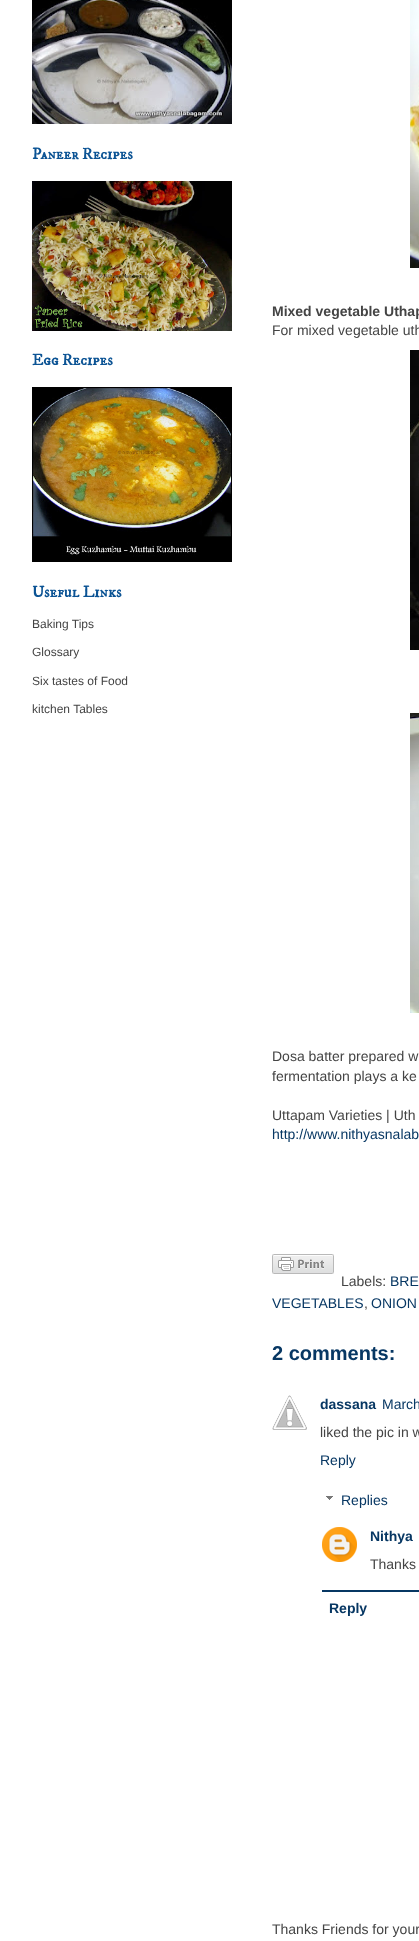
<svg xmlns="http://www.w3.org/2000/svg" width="419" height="1941">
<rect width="100%" height="100%" fill="#fff"/>
<image x="32" y="0" width="200" height="124" href="media/1.png"/>
<text x="32" y="159" style="font-family:IM FELL DW Pica SC;font-size:16px;font-weight:bold;fill:#0b5394">Paneer Recipes</text>
<image x="32" y="181" width="200" height="150" href="media/2.png"/>
<text x="32" y="365" style="font-family:IM FELL DW Pica SC;font-size:16px;font-weight:bold;fill:#0b5394">Egg Recipes</text>
<image x="32" y="387" width="200" height="175" href="media/3.png"/>
<text x="32" y="597" style="font-family:IM FELL DW Pica SC;font-size:16px;font-weight:bold;fill:#0b5394">Useful Links</text>
<text x="32" y="628" style="font-family:Liberation Sans;font-size:12px;fill:#444">Baking Tips</text>
<text x="32" y="656" style="font-family:Liberation Sans;font-size:12px;fill:#444">Glossary</text>
<text x="32" y="685" style="font-family:Liberation Sans;font-size:12px;fill:#444">Six tastes of Food</text>
<text x="32" y="713" style="font-family:Liberation Sans;font-size:12px;fill:#444">kitchen Tables</text>
<image x="410" y="0" width="9" height="268" href="media/4.png"/>
<text x="272" y="316" style="font-family:Liberation Sans;font-size:14px;font-weight:bold;fill:#444">Mixed vegetable Uthap</text>
<text x="272" y="335" style="font-family:Liberation Sans;font-size:14px;fill:#444">For mixed vegetable uth</text>
<image x="410" y="350" width="9" height="300" href="media/5.png"/>
<image x="410" y="713" width="9" height="300" href="media/6.png"/>
<text x="272" y="1061" style="font-family:Liberation Sans;font-size:14px;fill:#444">Dosa batter prepared w</text>
<text x="272" y="1081" style="font-family:Liberation Sans;font-size:14px;fill:#444">fermentation plays a ke</text>
<text x="272" y="1120" style="font-family:Liberation Sans;font-size:14px;fill:#444">Uttapam Varieties | Uth</text>
<text x="272" y="1139" style="font-family:Liberation Sans;font-size:14px;fill:#073763">http://www.nithyasnalab</text>
<image x="272" y="1254" width="62" height="20" href="media/7.png"/>
<text x="341" y="1286" style="font-family:Liberation Sans;font-size:14px;fill:#444">Labels:</text>
<text x="390" y="1286" style="font-family:Liberation Sans;font-size:14px;fill:#073763">BRE</text>
<text x="272" y="1308" style="font-family:Liberation Sans;font-size:14px;fill:#073763">VEGETABLES</text>
<text x="364" y="1308" style="font-family:Liberation Sans;font-size:14px;fill:#444">,</text>
<text x="371" y="1308" style="font-family:Liberation Sans;font-size:14px;fill:#073763">ONION</text>
<text x="272" y="1360" style="font-family:Liberation Sans;font-size:20px;font-weight:bold;fill:#073763">2 comments:</text>
<image x="272" y="1395" width="35" height="35" href="media/8.png"/>
<text x="320" y="1409" style="font-family:Liberation Sans;font-size:14px;font-weight:bold;fill:#073763">dassana</text>
<text x="382" y="1409" style="font-family:Liberation Sans;font-size:14px;fill:#073763">March</text>
<text x="320" y="1437" style="font-family:Liberation Sans;font-size:14px;fill:#444">liked the pic in w</text>
<text x="320" y="1465" style="font-family:Liberation Sans;font-size:14px;fill:#073763">Reply</text>
<image x="326" y="1496" width="7" height="4" href="media/9.png"/>
<text x="341" y="1505" style="font-family:Liberation Sans;font-size:14px;fill:#073763">Replies</text>
<image x="322" y="1527" width="35" height="35" href="media/10.png"/>
<text x="370" y="1541" style="font-family:Liberation Sans;font-size:14px;font-weight:bold;fill:#073763">Nithya</text>
<text x="370" y="1569" style="font-family:Liberation Sans;font-size:14px;fill:#444">Thanks</text>
<rect x="322" y="1590" width="97" height="2" fill="#073763"/>
<text x="329" y="1613" style="font-family:Liberation Sans;font-size:14px;font-weight:bold;fill:#073763">Reply</text>
<text x="272" y="1934" style="font-family:Liberation Sans;font-size:14px;fill:#444">Thanks Friends for your</text>
</svg>
